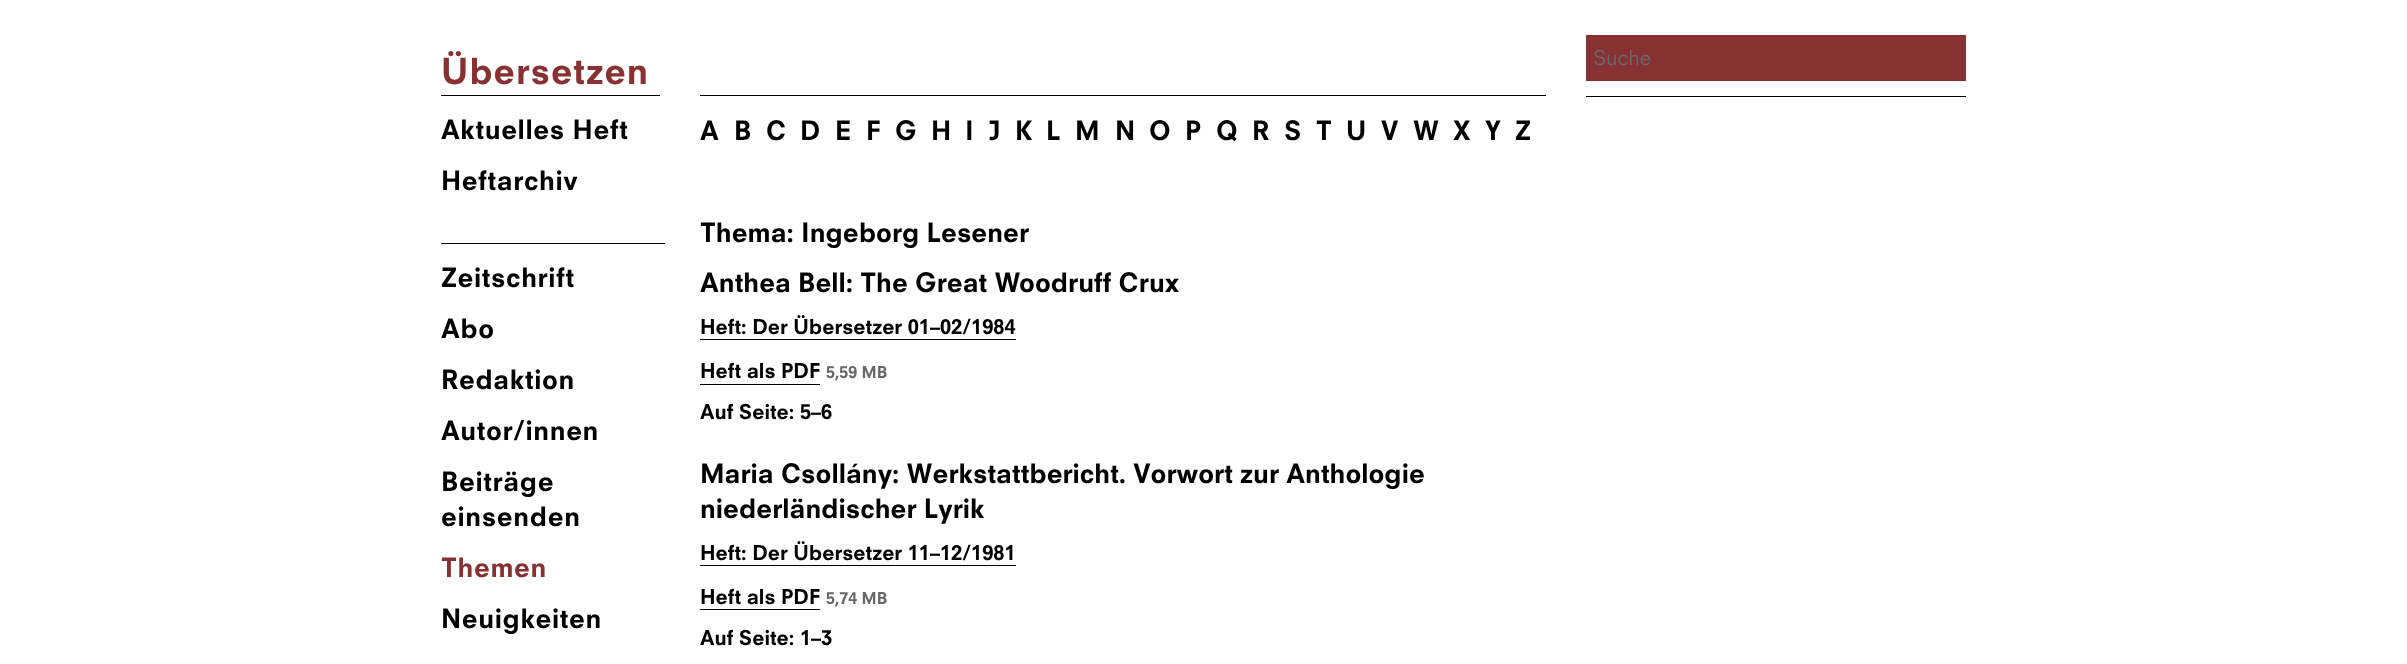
<svg xmlns="http://www.w3.org/2000/svg" width="2407" height="664">
<rect width="100%" height="100%" fill="#fff"/>
<rect x="441" y="95" width="219" height="1" fill="#000"/>
<text x="441" y="84" style="font-family:'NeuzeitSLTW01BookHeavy';font-size:35px;font-weight:900;letter-spacing:1px;fill:#883132">Übersetzen</text>
<rect x="441" y="243" width="224" height="1" fill="#000"/>
<text x="441" y="139" style="font-family:'NeuzeitSLTW01BookHeavy';font-size:26px;font-weight:900;letter-spacing:0.6px;fill:#000">Aktuelles Heft</text>
<text x="441" y="190" style="font-family:'NeuzeitSLTW01BookHeavy';font-size:26px;font-weight:900;letter-spacing:0.6px;fill:#000">Heftarchiv</text>
<text x="441" y="287" style="font-family:'NeuzeitSLTW01BookHeavy';font-size:26px;font-weight:900;letter-spacing:0.6px;fill:#000">Zeitschrift</text>
<text x="441" y="338" style="font-family:'NeuzeitSLTW01BookHeavy';font-size:26px;font-weight:900;letter-spacing:0.6px;fill:#000">Abo</text>
<text x="441" y="389" style="font-family:'NeuzeitSLTW01BookHeavy';font-size:26px;font-weight:900;letter-spacing:0.6px;fill:#000">Redaktion</text>
<text x="441" y="440" style="font-family:'NeuzeitSLTW01BookHeavy';font-size:26px;font-weight:900;letter-spacing:0.6px;fill:#000">Autor/innen</text>
<text x="441" y="491" style="font-family:'NeuzeitSLTW01BookHeavy';font-size:26px;font-weight:900;letter-spacing:0.6px;fill:#000">Beiträge</text>
<text x="441" y="526" style="font-family:'NeuzeitSLTW01BookHeavy';font-size:26px;font-weight:900;letter-spacing:0.6px;fill:#000">einsenden</text>
<text x="441" y="577" style="font-family:'NeuzeitSLTW01BookHeavy';font-size:26px;font-weight:900;letter-spacing:0.6px;fill:#883132">Themen</text>
<text x="441" y="628" style="font-family:'NeuzeitSLTW01BookHeavy';font-size:26px;font-weight:900;letter-spacing:0.6px;fill:#000">Neuigkeiten</text>
<rect x="1586" y="96" width="380" height="1" fill="#000"/>
<rect x="1586" y="35" width="380" height="46" fill="#883132"/>
<text x="1593" y="65" style="font-family:'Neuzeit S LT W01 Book';font-size:20px;fill:#686868">Suche</text>
<rect x="700" y="95" width="846" height="1" fill="#000"/>
<text x="700" y="140" style="font-family:'NeuzeitSLTW01BookHeavy';font-size:26px;font-weight:900;fill:#000">A</text>
<text x="734" y="140" style="font-family:'NeuzeitSLTW01BookHeavy';font-size:26px;font-weight:900;fill:#000">B</text>
<text x="766" y="140" style="font-family:'NeuzeitSLTW01BookHeavy';font-size:26px;font-weight:900;fill:#000">C</text>
<text x="800" y="140" style="font-family:'NeuzeitSLTW01BookHeavy';font-size:26px;font-weight:900;fill:#000">D</text>
<text x="835" y="140" style="font-family:'NeuzeitSLTW01BookHeavy';font-size:26px;font-weight:900;fill:#000">E</text>
<text x="866" y="140" style="font-family:'NeuzeitSLTW01BookHeavy';font-size:26px;font-weight:900;fill:#000">F</text>
<text x="895" y="140" style="font-family:'NeuzeitSLTW01BookHeavy';font-size:26px;font-weight:900;fill:#000">G</text>
<text x="931" y="140" style="font-family:'NeuzeitSLTW01BookHeavy';font-size:26px;font-weight:900;fill:#000">H</text>
<text x="965" y="140" style="font-family:'NeuzeitSLTW01BookHeavy';font-size:26px;font-weight:900;fill:#000">I</text>
<text x="989" y="140" style="font-family:'NeuzeitSLTW01BookHeavy';font-size:26px;font-weight:900;fill:#000">J</text>
<text x="1015" y="140" style="font-family:'NeuzeitSLTW01BookHeavy';font-size:26px;font-weight:900;fill:#000">K</text>
<text x="1046" y="140" style="font-family:'NeuzeitSLTW01BookHeavy';font-size:26px;font-weight:900;fill:#000">L</text>
<text x="1075" y="140" style="font-family:'NeuzeitSLTW01BookHeavy';font-size:26px;font-weight:900;fill:#000">M</text>
<text x="1115" y="140" style="font-family:'NeuzeitSLTW01BookHeavy';font-size:26px;font-weight:900;fill:#000">N</text>
<text x="1149" y="140" style="font-family:'NeuzeitSLTW01BookHeavy';font-size:26px;font-weight:900;fill:#000">O</text>
<text x="1185" y="140" style="font-family:'NeuzeitSLTW01BookHeavy';font-size:26px;font-weight:900;fill:#000">P</text>
<text x="1216" y="140" style="font-family:'NeuzeitSLTW01BookHeavy';font-size:26px;font-weight:900;fill:#000">Q</text>
<text x="1252" y="140" style="font-family:'NeuzeitSLTW01BookHeavy';font-size:26px;font-weight:900;fill:#000">R</text>
<text x="1284" y="140" style="font-family:'NeuzeitSLTW01BookHeavy';font-size:26px;font-weight:900;fill:#000">S</text>
<text x="1316" y="140" style="font-family:'NeuzeitSLTW01BookHeavy';font-size:26px;font-weight:900;fill:#000">T</text>
<text x="1346" y="140" style="font-family:'NeuzeitSLTW01BookHeavy';font-size:26px;font-weight:900;fill:#000">U</text>
<text x="1381" y="140" style="font-family:'NeuzeitSLTW01BookHeavy';font-size:26px;font-weight:900;fill:#000">V</text>
<text x="1413" y="140" style="font-family:'NeuzeitSLTW01BookHeavy';font-size:26px;font-weight:900;fill:#000">W</text>
<text x="1453" y="140" style="font-family:'NeuzeitSLTW01BookHeavy';font-size:26px;font-weight:900;fill:#000">X</text>
<text x="1485" y="140" style="font-family:'NeuzeitSLTW01BookHeavy';font-size:26px;font-weight:900;fill:#000">Y</text>
<text x="1515" y="140" style="font-family:'NeuzeitSLTW01BookHeavy';font-size:26px;font-weight:900;fill:#000">Z</text>
<text x="700" y="242" style="font-family:'NeuzeitSLTW01BookHeavy';font-size:26px;font-weight:900;fill:#000">Thema: Ingeborg Lesener</text>
<text x="700" y="292" style="font-family:'NeuzeitSLTW01BookHeavy';font-size:26px;font-weight:900;fill:#000">Anthea Bell: The Great Woodruff Crux</text>
<text x="700" y="334" style="font-family:'NeuzeitSLTW01BookHeavy';font-size:20px;font-weight:900;fill:#000">Heft: Der Übersetzer 01–02/1984</text>
<rect x="700" y="339" width="316" height="1" fill="#000"/>
<text x="700" y="378" style="font-family:'NeuzeitSLTW01BookHeavy';font-size:20px;font-weight:900;fill:#000">Heft als PDF</text>
<rect x="700" y="384" width="120" height="1" fill="#000"/>
<text x="826" y="378" style="font-family:'NeuzeitSLTW01BookHeavy';font-size:16px;font-weight:900;fill:#686868">5,59 MB</text>
<text x="700" y="419" style="font-family:'NeuzeitSLTW01BookHeavy';font-size:20px;font-weight:900;fill:#000">Auf Seite: 5–6</text>
<text x="700" y="483" style="font-family:'NeuzeitSLTW01BookHeavy';font-size:26px;font-weight:900;fill:#000">Maria Csollány: Werkstattbericht. Vorwort zur Anthologie</text>
<text x="700" y="518" style="font-family:'NeuzeitSLTW01BookHeavy';font-size:26px;font-weight:900;fill:#000">niederländischer Lyrik</text>
<text x="700" y="560" style="font-family:'NeuzeitSLTW01BookHeavy';font-size:20px;font-weight:900;fill:#000">Heft: Der Übersetzer 11–12/1981</text>
<rect x="700" y="565" width="316" height="1" fill="#000"/>
<text x="700" y="604" style="font-family:'NeuzeitSLTW01BookHeavy';font-size:20px;font-weight:900;fill:#000">Heft als PDF</text>
<rect x="700" y="609" width="120" height="1" fill="#000"/>
<text x="826" y="604" style="font-family:'NeuzeitSLTW01BookHeavy';font-size:16px;font-weight:900;fill:#686868">5,74 MB</text>
<text x="700" y="645" style="font-family:'NeuzeitSLTW01BookHeavy';font-size:20px;font-weight:900;fill:#000">Auf Seite: 1–3</text>
</svg>
